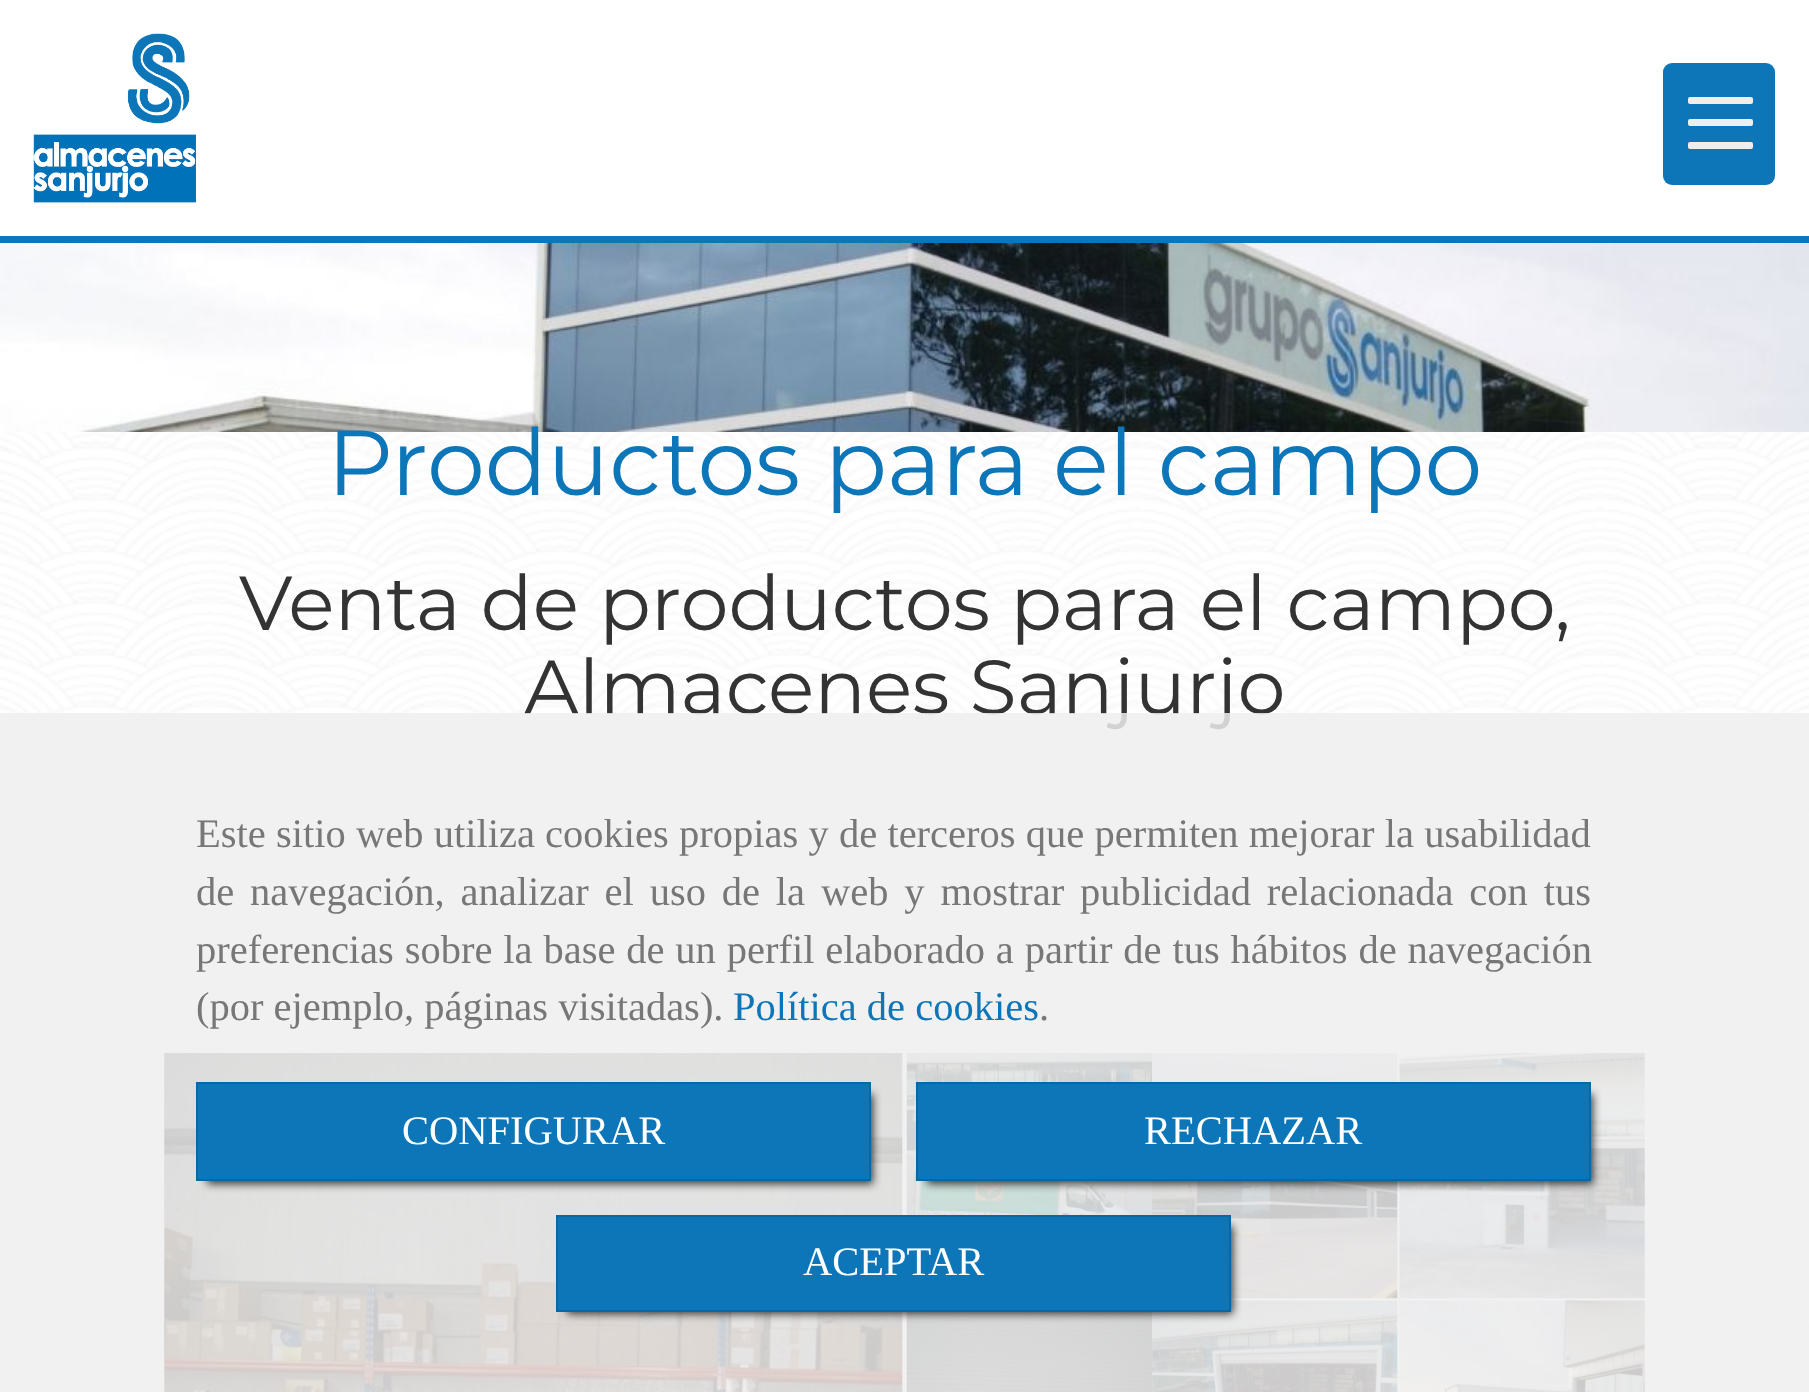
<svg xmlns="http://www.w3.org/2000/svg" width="1809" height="1392">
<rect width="100%" height="100%" fill="#fff"/>
<image x="0" y="432" width="1809" height="960" href="media/1.png"/>
<image x="33" y="33" width="163" height="170" href="media/2.png"/>
<rect x="1663" y="63" width="112" height="122" rx="9" fill="#0c76b9"/>
<rect x="1688" y="119" width="65" height="7" rx="2" fill="#eee"/>
<rect x="1688" y="97" width="65" height="7" rx="2" fill="#eee"/>
<rect x="1688" y="142" width="65" height="7" rx="2" fill="#eee"/>
<rect y="236" width="1809" height="7" fill="#0c76b9"/>
<image x="0" y="243" width="1809" height="189" href="media/3.png"/>
<text x="327" y="495" style="font-family:Montserrat;font-size:92.25px;font-weight:100;fill:#0c76b9">Productos para el campo</text>
<text x="239" y="630" style="font-family:Montserrat;font-size:76.5px;font-weight:100;fill:#333">Venta de productos para el campo,</text>
<text x="524" y="714" style="font-family:Montserrat;font-size:76.5px;font-weight:100;fill:#333">Almacenes Sanjurjo</text>
<image x="164" y="1053" width="739" height="339" href="media/4.png"/>
<image x="906" y="1053" width="246" height="162" href="media/5.png"/>
<image x="1152" y="1053" width="246" height="246" href="media/6.png"/>
<image x="1399" y="1053" width="246" height="246" href="media/7.png"/>
<image x="906" y="1312" width="246" height="80" href="media/8.png"/>
<image x="1152" y="1300" width="246" height="92" href="media/9.png"/>
<image x="1399" y="1300" width="246" height="92" href="media/10.png"/>
<rect y="713" width="1809" height="679" fill="#eeeeeed9"/>
<text x="196" y="847" word-spacing="0.1" style="font-family:Liberation Serif;font-size:40.5px;fill:#777">Este sitio web utiliza cookies propias y de terceros que permiten mejorar la usabilidad</text>
<text x="196" y="905" word-spacing="5.75" style="font-family:Liberation Serif;font-size:40.5px;fill:#777">de navegación, analizar el uso de la web y mostrar publicidad relacionada con tus</text>
<text x="196" y="963" word-spacing="0.75" style="font-family:Liberation Serif;font-size:40.5px;fill:#777">preferencias sobre la base de un perfil elaborado a partir de tus hábitos de navegación</text>
<text x="196" y="1020" style="font-family:Liberation Serif;font-size:40.5px;fill:#777">(por ejemplo, páginas visitadas).</text>
<text x="733" y="1020" style="font-family:Liberation Serif;font-size:40.5px;fill:#0c76b9">Política de cookies</text>
<text x="1039" y="1020" style="font-family:Liberation Serif;font-size:40.5px;fill:#777">.</text>
<rect x="207" y="1094" width="666" height="90" fill="#000000bf" filter="blur(4.5px)"/>
<rect x="197" y="1083" width="673" height="97" fill="#0c76b9" stroke="#0a67a1" stroke-width="2"/>
<text x="402" y="1144" style="font-family:Liberation Serif;font-size:40.5px;fill:#fff">CONFIGURAR</text>
<rect x="927" y="1094" width="666" height="90" fill="#000000bf" filter="blur(4.5px)"/>
<rect x="917" y="1083" width="673" height="97" fill="#0c76b9" stroke="#0a67a1" stroke-width="2"/>
<text x="1144" y="1144" style="font-family:Liberation Serif;font-size:40.5px;fill:#fff">RECHAZAR</text>
<rect x="567" y="1226" width="666" height="88" fill="#000000bf" filter="blur(4.5px)"/>
<rect x="557" y="1216" width="673" height="95" fill="#0c76b9" stroke="#0a67a1" stroke-width="2"/>
<text x="803" y="1275" style="font-family:Liberation Serif;font-size:40.5px;fill:#fff">ACEPTAR</text>
</svg>
